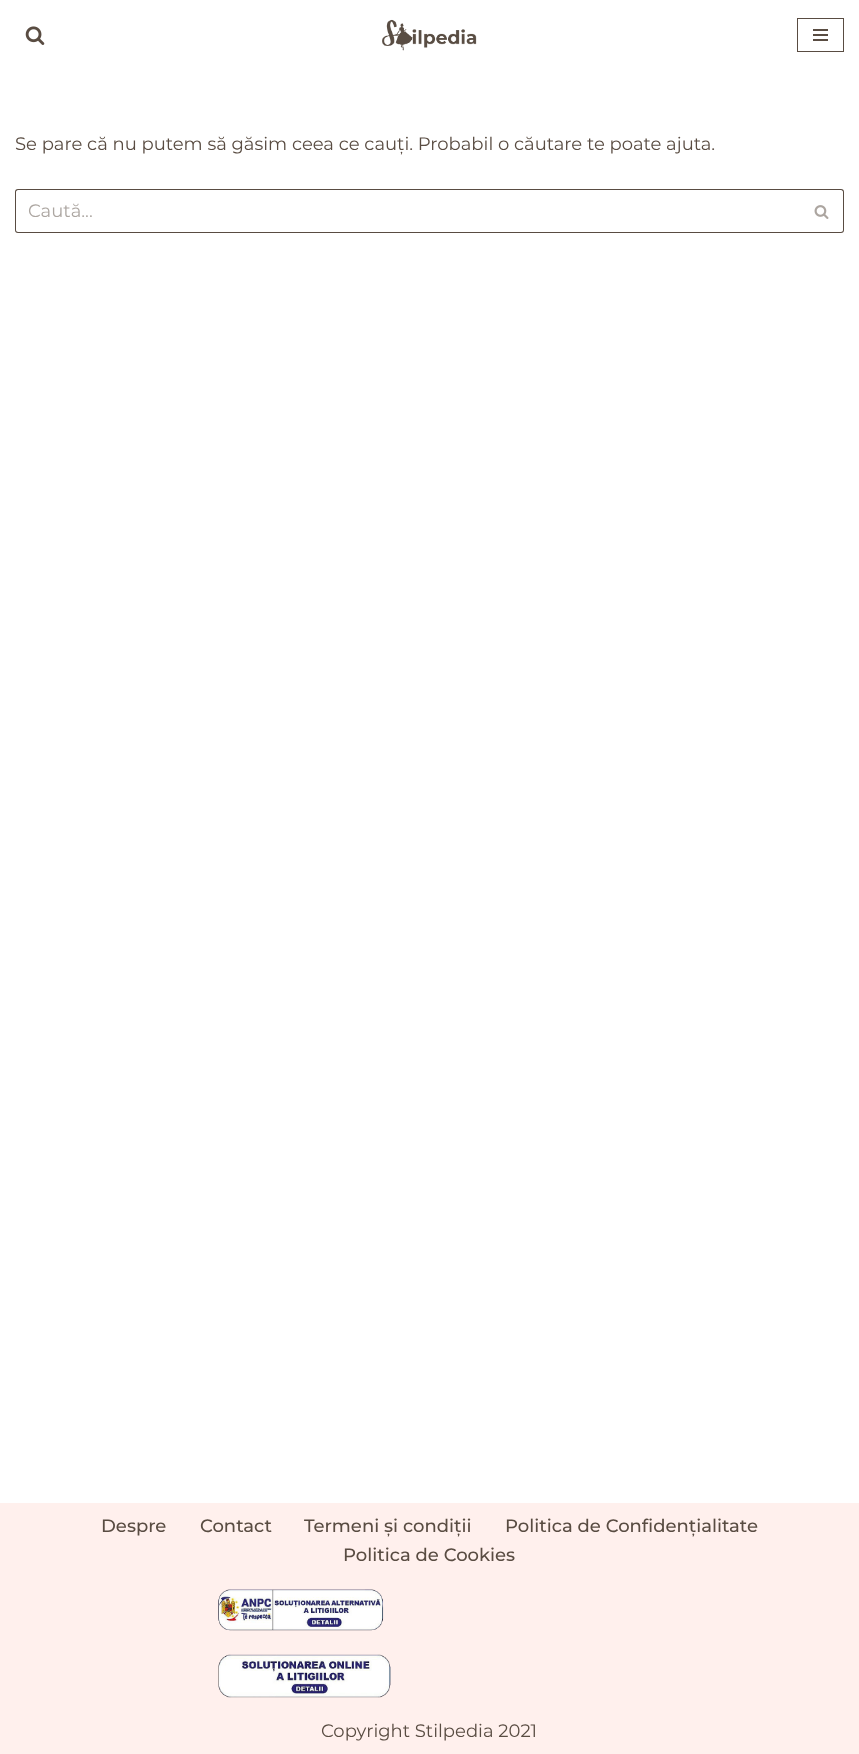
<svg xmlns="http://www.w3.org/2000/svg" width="859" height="1754">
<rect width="100%" height="100%" fill="#fff"/>
<image x="25" y="26" width="20" height="19" href="media/1.png"/>
<image x="382" y="19" width="95" height="32" href="media/2.png"/>
<rect x="797.5" y="18.5" width="46" height="33" fill="none" stroke="#594c42"/>
<rect x="813" y="29" width="15" height="2" fill="#594c42"/>
<rect x="813" y="34" width="15" height="2" fill="#594c42"/>
<rect x="813" y="39" width="15" height="2" fill="#594c42"/>
<text x="15" y="150" style="font-family:Montserrat;font-size:18px;fill:#594c42">Se pare că nu putem să găsim ceea ce cauți. Probabil o căutare te poate ajuta.</text>
<path d="M18 189h781v44h-781c-2 0-3-1-3-3v-38c0-2 1-3 3-3zm0 1h781v42h-781c-1 0-2-1-2-2v-38c0-1 1-2 2-2z" fill="#594c42" fill-rule="evenodd"/>
<text x="28" y="217" style="font-family:Montserrat;font-size:18px;fill:#aca6a1">Caută...</text>
<path d="M799 189h42c2 0 3 1 3 3v38c0 2-1 3-3 3h-42zm0 1h42c1 0 2 1 2 2v38c0 1-1 2-2 2h-42z" fill="#594c42" fill-rule="evenodd"/>
<image x="814" y="205" width="15" height="14" href="media/3.png"/>
<rect y="1503" width="859" height="251" fill="#fff0ed"/>
<text x="101" y="1532" style="font-family:Montserrat;font-size:18px;font-weight:500;fill:#594c42">Despre</text>
<text x="200" y="1532" style="font-family:Montserrat;font-size:18px;font-weight:500;fill:#594c42">Contact</text>
<text x="304" y="1532" style="font-family:Montserrat;font-size:18px;font-weight:500;fill:#594c42">Termeni și condiții</text>
<text x="505" y="1532" style="font-family:Montserrat;font-size:18px;font-weight:500;fill:#594c42">Politica de Confidențialitate</text>
<text x="343" y="1561" style="font-family:Montserrat;font-size:18px;font-weight:500;fill:#594c42">Politica de Cookies</text>
<image x="218" y="1589" width="166" height="42" href="media/4.png"/>
<image x="218" y="1654" width="173" height="44" href="media/5.png"/>
<text x="321" y="1737" style="font-family:Montserrat;font-size:18px;fill:#594c42">Copyright Stilpedia 2021</text>
</svg>
